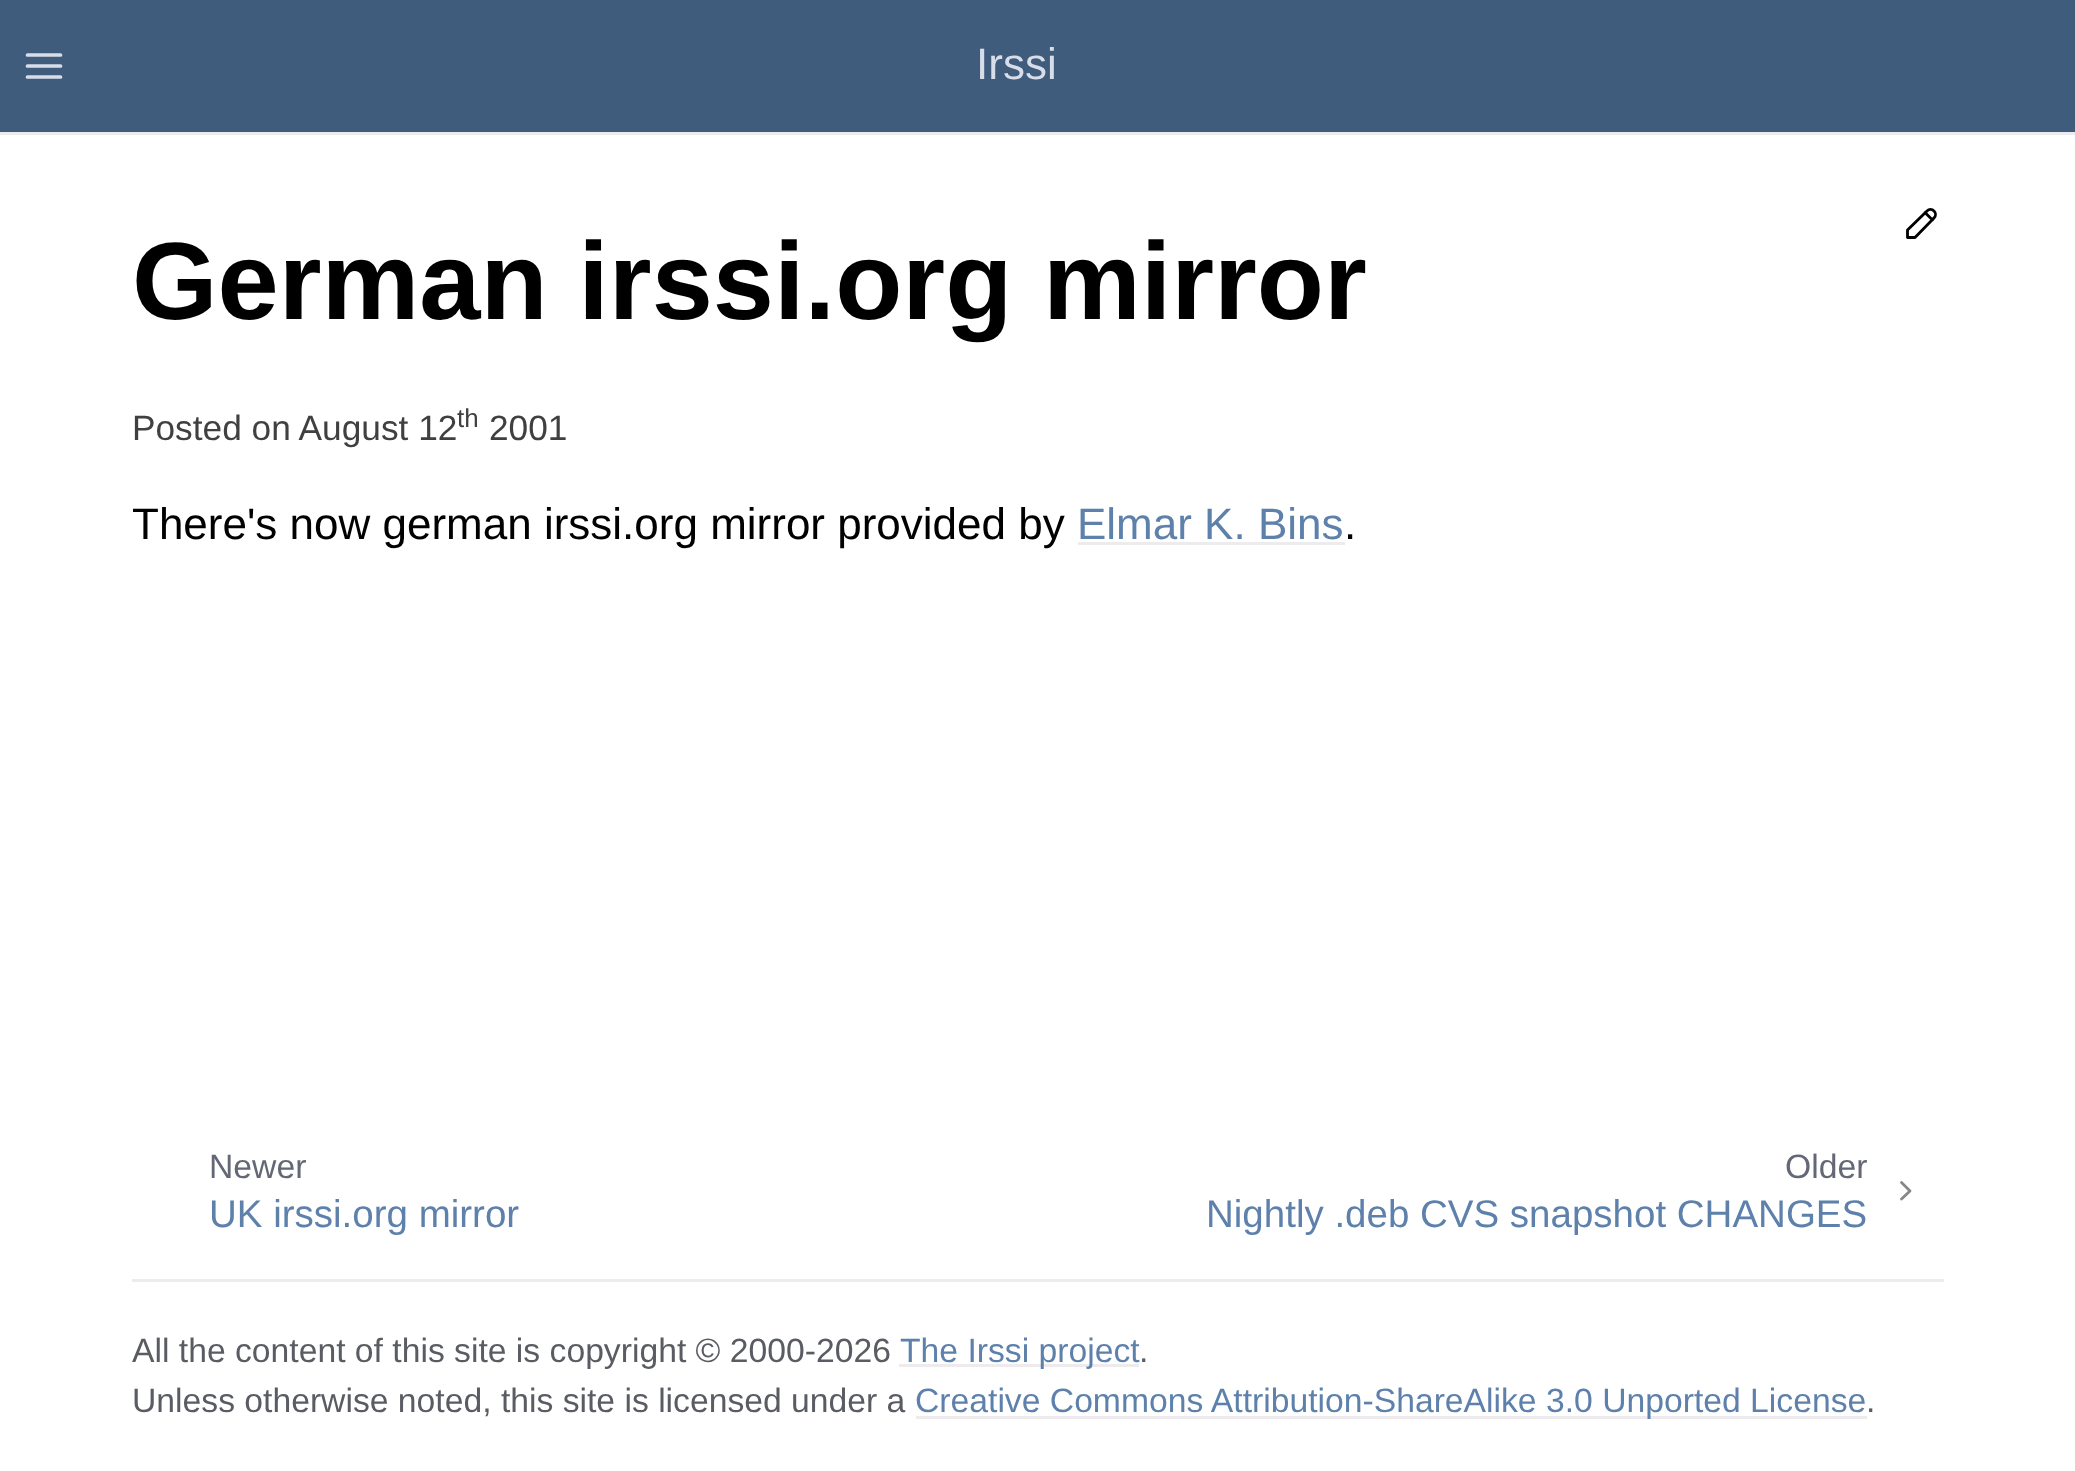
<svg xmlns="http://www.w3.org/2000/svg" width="2075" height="1471">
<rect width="100%" height="100%" fill="#fff"/>
<rect width="2075" height="132" fill="#405c7d"/>
<rect y="132" width="2075" height="3" fill="#eeebee"/>
<path d="M27.5 66h33m-33-11h33m-33 22h33" fill="none" stroke="#d8dee9" stroke-width="3.7" stroke-linecap="round" stroke-linejoin="round"/>
<text x="976" y="79" style="font-family:Liberation Sans;font-size:44px;fill:#d8dee9">Irssi</text>
<path d="M1907.5 237.5h7.5l19-19.5c2-2 2-5 0-7c-2-2-5-2-7 0l-19.5 19v7.5m17.5-25l7.5 7.5" fill="none" stroke="#000" stroke-width="2.8" stroke-linecap="round" stroke-linejoin="round"/>
<text x="132" y="319" style="font-family:Liberation Sans;font-size:110px;font-weight:bold;fill:#000">German irssi.org mirror</text>
<text x="132" y="440" style="font-family:Liberation Sans;font-size:35.25px;fill:#404040">Posted on August 12</text>
<text x="457" y="427" style="font-family:Liberation Sans;font-size:26px;fill:#404040">th</text>
<text x="489" y="440" style="font-family:Liberation Sans;font-size:35.25px;fill:#404040">2001</text>
<text x="132" y="539" style="font-family:Liberation Sans;font-size:44px;fill:#000">There's now german irssi.org mirror provided by</text>
<text x="1077" y="539" style="font-family:Liberation Sans;font-size:44px;fill:#5e81ac">Elmar K. Bins</text>
<rect x="1078" y="542" width="267" height="3" fill="#eeebee"/>
<text x="1344" y="539" style="font-family:Liberation Sans;font-size:44px;fill:#000">.</text>
<text x="209" y="1178" style="font-family:Liberation Sans;font-size:33.7px;fill:#646776">Newer</text>
<text x="209" y="1227" style="font-family:Liberation Sans;font-size:38.5px;fill:#5e81ac">UK irssi.org mirror</text>
<text x="1785" y="1178" style="font-family:Liberation Sans;font-size:33.7px;fill:#646776">Older</text>
<text x="1206" y="1227" style="font-family:Liberation Sans;font-size:38.5px;fill:#5e81ac">Nightly .deb CVS snapshot CHANGES</text>
<path d="M1901.5 1199l8.5-8l-8.5-8.5" fill="none" stroke="#878787" stroke-width="2.8" stroke-linecap="round" stroke-linejoin="round"/>
<rect x="132" y="1279" width="1812" height="3" fill="#eeebee"/>
<text x="132" y="1362" style="font-family:Liberation Sans;font-size:33.7px;fill:#5a5c63">All the content of this site is copyright © 2000-2026</text>
<rect x="899" y="1364" width="240" height="3" fill="#eeebee"/>
<text x="900" y="1362" style="font-family:Liberation Sans;font-size:33.7px;fill:#5e81ac">The Irssi project</text>
<text x="1139" y="1362" style="font-family:Liberation Sans;font-size:33.7px;fill:#5a5c63">.</text>
<text x="132" y="1412" style="font-family:Liberation Sans;font-size:33.7px;fill:#5a5c63">Unless otherwise noted, this site is licensed under a</text>
<rect x="916" y="1416" width="951" height="3" fill="#eeebee"/>
<text x="915" y="1412" style="font-family:Liberation Sans;font-size:33.7px;fill:#5e81ac">Creative Commons Attribution-ShareAlike 3.0 Unported License</text>
<text x="1866" y="1412" style="font-family:Liberation Sans;font-size:33.7px;fill:#5a5c63">.</text>
</svg>
